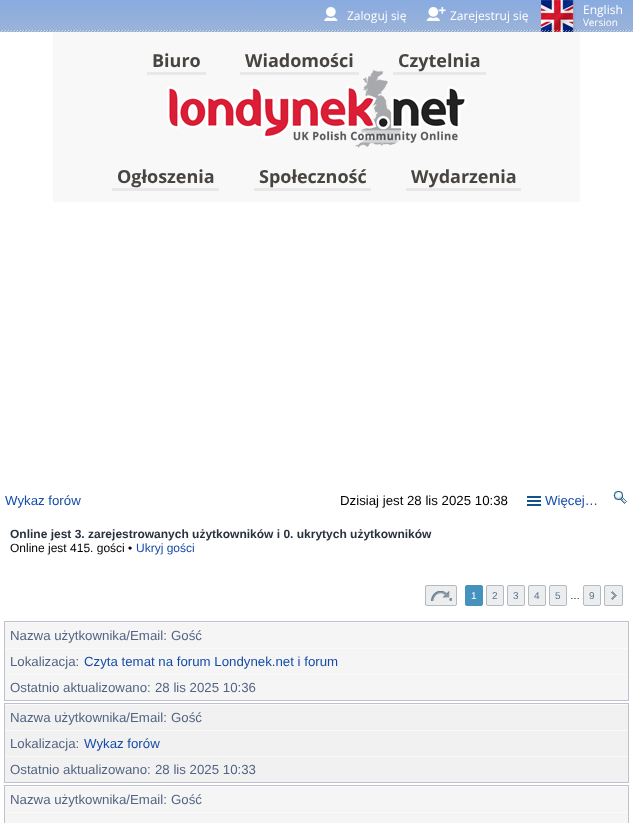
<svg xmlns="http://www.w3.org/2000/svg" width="633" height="823">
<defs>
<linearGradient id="g1" gradientUnits="userSpaceOnUse" x1="317" y1="0" x2="317" y2="32"><stop offset="0" stop-color="#89abe0"/><stop offset="1" stop-color="#9bb3d8"/></linearGradient>
</defs>
<rect width="100%" height="100%" fill="#fff"/>
<rect width="633" height="32" fill="url(#g1)"/>
<image x="324" y="7" width="14" height="14" href="media/1.png"/>
<text x="347" y="20" style="font-family:Open Sans;font-size:12px;fill:#fff">Zaloguj się</text>
<image x="426" y="7" width="20" height="14" href="media/2.png"/>
<text x="450" y="20" style="font-family:Open Sans;font-size:12px;fill:#fff">Zarejestruj się</text>
<image x="541" y="0" width="35" height="32" href="media/3.png"/>
<text x="583" y="14" style="font-family:Open Sans;font-size:12px;fill:#fff">English</text>
<text x="583" y="26" style="font-family:Open Sans;font-size:10px;fill:#fff">Version</text>
<image x="1" y="30" width="632" height="2" href="media/4.png"/>
<rect x="53" y="32" width="527" height="170" fill="#f8f8f8"/>
<text x="152" y="67" style="font-family:Open Sans;font-size:18px;font-weight:bold;fill:#484440">Biuro</text>
<image x="167" y="69" width="300" height="79" href="media/5.png"/>
<rect x="147" y="72" width="59" height="3" fill="#e8e8e8"/>
<text x="245" y="67" style="font-family:Open Sans;font-size:18px;font-weight:bold;fill:#484440">Wiadomości</text>
<rect x="240" y="72" width="119" height="3" fill="#e8e8e8"/>
<text x="398" y="67" style="font-family:Open Sans;font-size:18px;font-weight:bold;fill:#484440">Czytelnia</text>
<rect x="393" y="72" width="93" height="3" fill="#e8e8e8"/>
<text x="117" y="183" style="font-family:Open Sans;font-size:18px;font-weight:bold;fill:#484440">Ogłoszenia</text>
<rect x="112" y="188" width="107" height="3" fill="#e8e8e8"/>
<text x="259" y="183" style="font-family:Open Sans;font-size:18px;font-weight:bold;fill:#484440">Społeczność</text>
<rect x="254" y="188" width="117" height="3" fill="#e8e8e8"/>
<text x="411" y="183" style="font-family:Open Sans;font-size:18px;font-weight:bold;fill:#484440">Wydarzenia</text>
<rect x="406" y="188" width="115" height="3" fill="#e8e8e8"/>
<text x="5" y="505" style="font-family:Liberation Sans;font-size:13.25px;fill:#154ca7">Wykaz forów</text>
<text x="340" y="505" style="font-family:Liberation Sans;font-size:13.25px;fill:#000">Dzisiaj jest 28 lis 2025 10:38</text>
<rect x="527" y="496" width="14" height="2" fill="#105289"/>
<rect x="527" y="500" width="14" height="2" fill="#105289"/>
<rect x="527" y="504" width="14" height="2" fill="#105289"/>
<text x="545" y="505" style="font-family:Liberation Sans;font-size:13.25px;fill:#154ca7">Więcej…</text>
<image x="613" y="491" width="14" height="13" href="media/6.png"/>
<text x="10" y="538" style="font-family:Liberation Sans;font-size:12px;font-weight:bold;fill:#28313f">Online jest 3. zarejestrowanych użytkowników i 0. ukrytych użytkowników</text>
<text x="10" y="552" style="font-family:Liberation Sans;font-size:12px;fill:#000">Online jest 415. gości •</text>
<text x="136" y="552" style="font-family:Liberation Sans;font-size:12px;fill:#154ca7">Ukryj gości</text>
<rect x="425" y="585" width="32" height="21" rx="2" fill="#ecedee"/>
<image x="431" y="591" width="22" height="10" href="media/7.png"/>
<rect x="425.5" y="585.5" width="31" height="20" rx="1.5" fill="none" stroke="#b4bac0"/>
<rect x="465.5" y="585.5" width="17" height="20" rx="1.5" fill="#4692bf" stroke="#4692bf"/>
<text x="471" y="599" style="font-family:Liberation Sans;font-size:10px;fill:#fff">1</text>
<rect x="486.5" y="585.5" width="17" height="20" rx="1.5" fill="#ecedee" stroke="#b4bac0"/>
<text x="492" y="599" style="font-family:Liberation Sans;font-size:10px;fill:#5c758c">2</text>
<rect x="507.5" y="585.5" width="17" height="20" rx="1.5" fill="#ecedee" stroke="#b4bac0"/>
<text x="513" y="599" style="font-family:Liberation Sans;font-size:10px;fill:#5c758c">3</text>
<rect x="528.5" y="585.5" width="17" height="20" rx="1.5" fill="#ecedee" stroke="#b4bac0"/>
<text x="534" y="599" style="font-family:Liberation Sans;font-size:10px;fill:#5c758c">4</text>
<rect x="549.5" y="585.5" width="17" height="20" rx="1.5" fill="#ecedee" stroke="#b4bac0"/>
<text x="555" y="599" style="font-family:Liberation Sans;font-size:10px;fill:#5c758c">5</text>
<text x="570" y="599" style="font-family:Liberation Sans;font-size:10px;fill:#000">…</text>
<rect x="583.5" y="585.5" width="17" height="20" rx="1.5" fill="#ecedee" stroke="#b4bac0"/>
<text x="589" y="599" style="font-family:Liberation Sans;font-size:10px;fill:#5c758c">9</text>
<rect x="604" y="585" width="19" height="21" rx="2" fill="#ecedee"/>
<image x="611" y="591" width="6" height="9" href="media/8.png"/>
<rect x="604.5" y="585.5" width="18" height="20" rx="1.5" fill="none" stroke="#b4bac0"/>
<rect x="5" y="623" width="623" height="77" fill="#f5f5f5"/>
<rect x="4.5" y="621.5" width="624" height="79" fill="none" stroke="#bfc1cf"/>
<rect x="5" y="622" width="623" height="1" fill="#fafafa"/>
<text x="10" y="640" style="font-family:Liberation Sans;font-size:13.25px;fill:#536482">Nazwa użytkownika/Email:</text>
<text x="171" y="640" style="font-family:Liberation Sans;font-size:13.25px;fill:#536482">Gość</text>
<rect x="5" y="648" width="623" height="1" fill="#fafafa"/>
<text x="10" y="666" style="font-family:Liberation Sans;font-size:13.25px;fill:#536482">Lokalizacja:</text>
<text x="84" y="666" style="font-family:Liberation Sans;font-size:13.25px;fill:#154ca7">Czyta temat na forum Londynek.net i forum</text>
<rect x="5" y="674" width="623" height="1" fill="#fafafa"/>
<text x="10" y="692" style="font-family:Liberation Sans;font-size:13.25px;fill:#536482">Ostatnio aktualizowano:</text>
<text x="155" y="692" style="font-family:Liberation Sans;font-size:13.25px;fill:#536482">28 lis 2025 10:36</text>
<rect x="5" y="705" width="623" height="77" fill="#f1f1f1"/>
<rect x="4.5" y="703.5" width="624" height="79" fill="none" stroke="#bfc1cf"/>
<rect x="5" y="704" width="623" height="1" fill="#fafafa"/>
<text x="10" y="722" style="font-family:Liberation Sans;font-size:13.25px;fill:#536482">Nazwa użytkownika/Email:</text>
<text x="171" y="722" style="font-family:Liberation Sans;font-size:13.25px;fill:#536482">Gość</text>
<rect x="5" y="730" width="623" height="1" fill="#fafafa"/>
<text x="10" y="748" style="font-family:Liberation Sans;font-size:13.25px;fill:#536482">Lokalizacja:</text>
<text x="84" y="748" style="font-family:Liberation Sans;font-size:13.25px;fill:#154ca7">Wykaz forów</text>
<rect x="5" y="756" width="623" height="1" fill="#fafafa"/>
<text x="10" y="774" style="font-family:Liberation Sans;font-size:13.25px;fill:#536482">Ostatnio aktualizowano:</text>
<text x="155" y="774" style="font-family:Liberation Sans;font-size:13.25px;fill:#536482">28 lis 2025 10:33</text>
<rect x="5" y="787" width="623" height="36" fill="#f5f5f5"/>
<rect x="4.5" y="785.5" width="624" height="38" fill="none" stroke="#bfc1cf"/>
<rect x="5" y="786" width="623" height="1" fill="#fafafa"/>
<text x="10" y="804" style="font-family:Liberation Sans;font-size:13.25px;fill:#536482">Nazwa użytkownika/Email:</text>
<text x="171" y="804" style="font-family:Liberation Sans;font-size:13.25px;fill:#536482">Gość</text>
<rect x="5" y="812" width="623" height="1" fill="#fafafa"/>
</svg>
